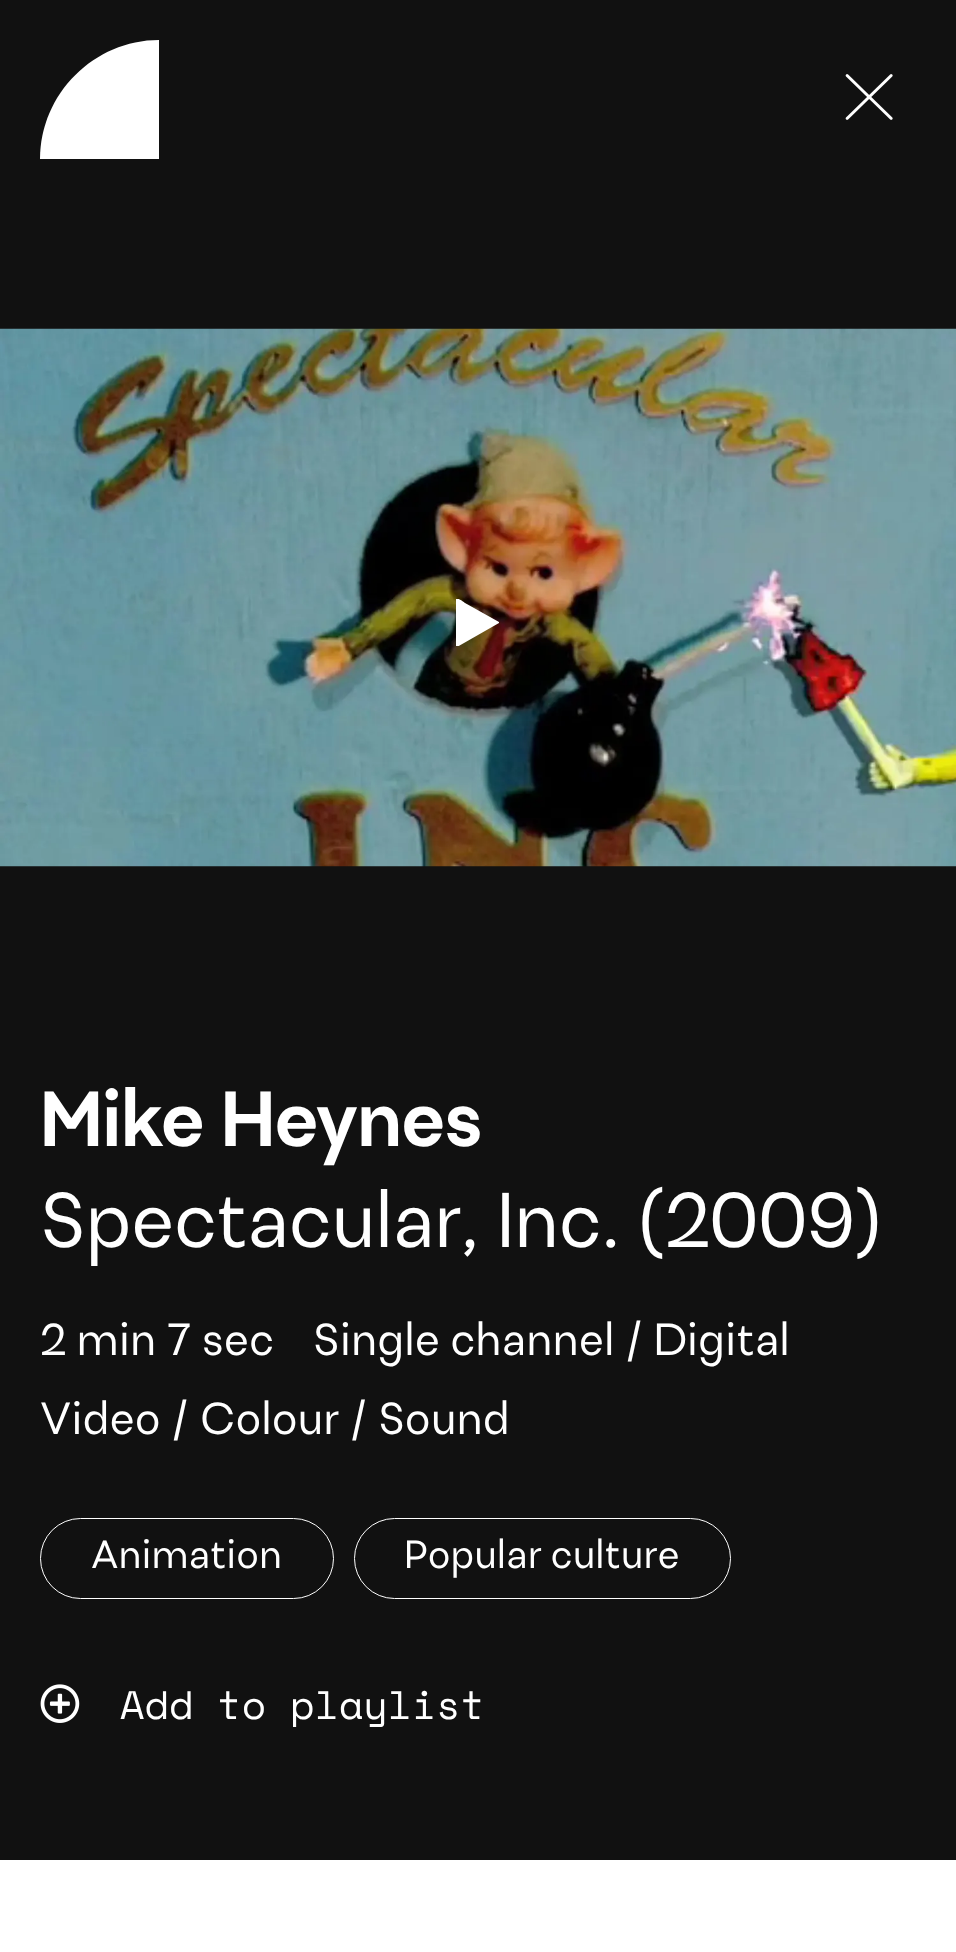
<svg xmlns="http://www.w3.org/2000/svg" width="956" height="1952">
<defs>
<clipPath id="clip1"><rect x="454" y="599" width="49" height="47"/></clipPath>
</defs>
<rect width="100%" height="100%" fill="#111"/>
<path d="M159 40c-65 0-119 54-119 119h119z" fill="#fff"/>
<image x="845" y="74" width="48" height="46" href="media/1.png"/>
<image x="0" y="328" width="956" height="539" href="media/2.png"/>
<g clip-path="url(#clip1)">
<path d="M499 622l-34-19c-1-1-8-6-9-4v47l1 1l35-20l7-4z" fill="#fff"/>
</g>
<text x="40" y="1146" style="font-family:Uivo;font-size:78px;font-weight:bold;letter-spacing:-0.75px;fill:#fff">Mike Heynes</text>
<image x="40" y="1684" width="40" height="39" href="media/3.png"/>
<text x="120" y="1719" style="font-family:Space Mono;font-size:39.75px;fill:#fff">Add to playlist</text>
<text x="40" y="1247" style="font-family:Uivo;font-size:78px;letter-spacing:-0.75px;fill:#fff">Spectacular, Inc. (2009)</text>
<text x="40" y="1355" style="font-family:Uivo;font-size:45.25px;fill:#fff">2 min 7 sec</text>
<text x="313" y="1355" style="font-family:Uivo;font-size:45.25px;fill:#fff">Single channel / Digital</text>
<text x="40" y="1434" style="font-family:Uivo;font-size:45.25px;fill:#fff">Video / Colour / Sound</text>
<rect x="40.5" y="1518.5" width="293" height="80" rx="40" fill="none" stroke="#fff"/>
<text x="91" y="1568" style="font-family:Uivo;font-size:39.75px;fill:#fff">Animation</text>
<rect x="354.5" y="1518.5" width="376" height="80" rx="40" fill="none" stroke="#fff"/>
<text x="404" y="1568" style="font-family:Uivo;font-size:39.75px;fill:#fff">Popular culture</text>
<rect y="1860" width="956" height="92" fill="#fff"/>
</svg>
